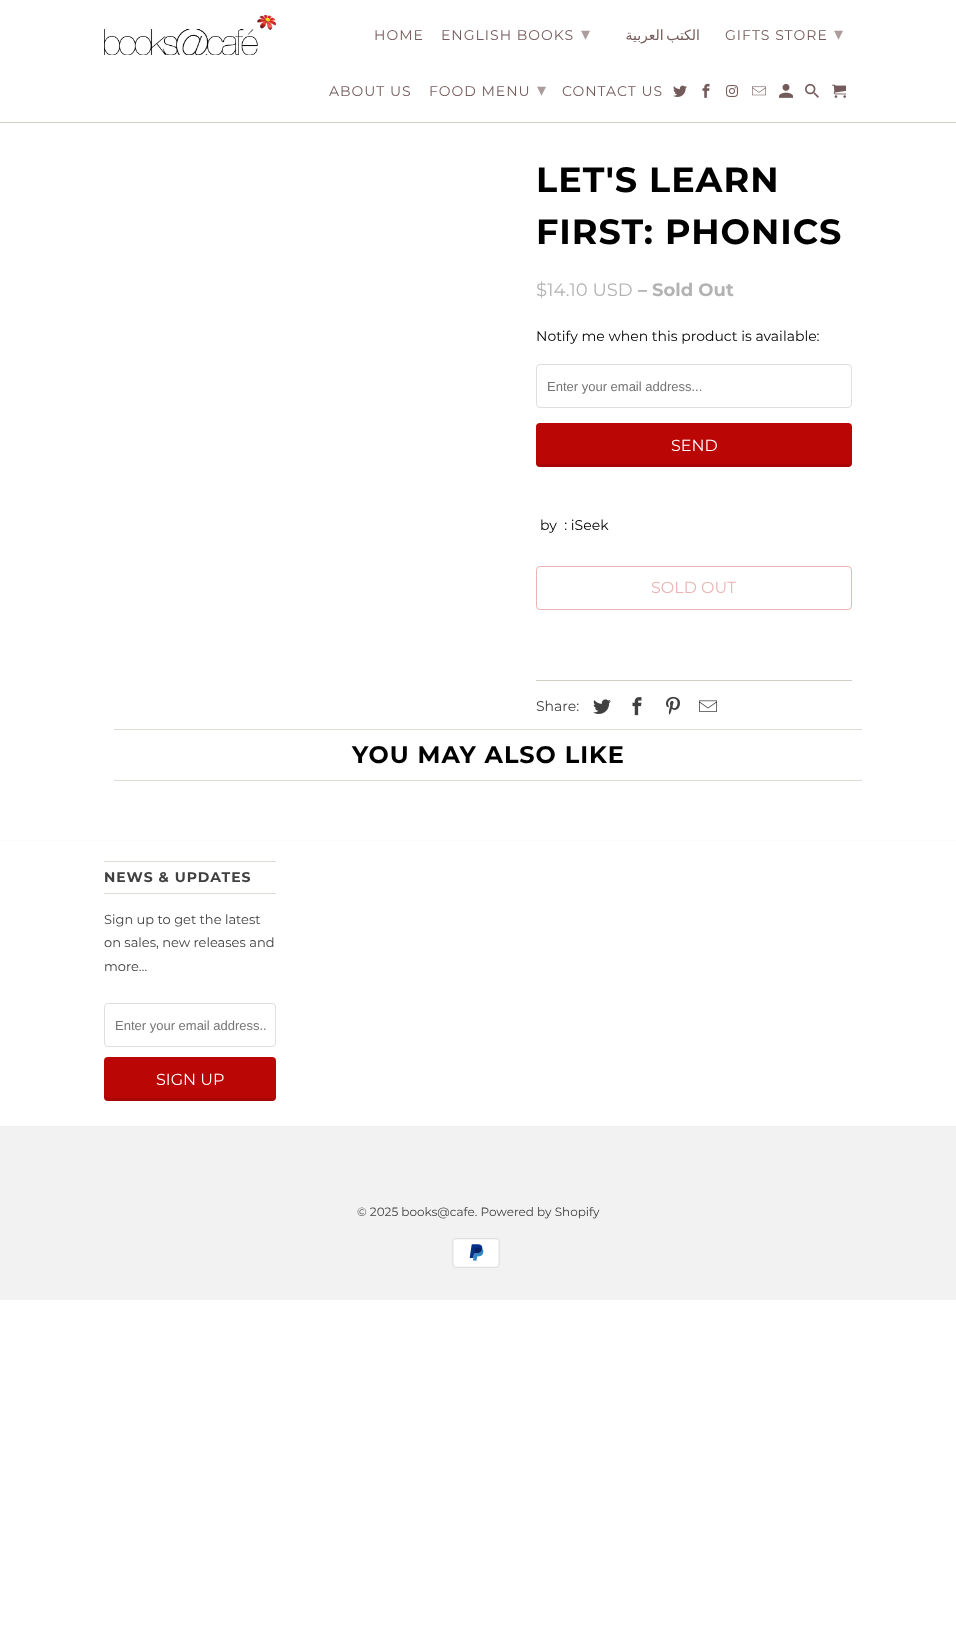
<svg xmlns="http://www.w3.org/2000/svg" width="956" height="1649">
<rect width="100%" height="100%" fill="#fff"/>
<rect y="122" width="956" height="1" fill="#d3cec5"/>
<image x="104" y="15" width="172" height="40" href="media/1.png"/>
<text x="374" y="40" style="font-family:Montserrat;font-size:14px;letter-spacing:1px;fill:#745b5b">HOME</text>
<text x="441" y="40" style="font-family:Montserrat;font-size:14px;letter-spacing:1px;fill:#745b5b">ENGLISH BOOKS</text>
<text x="581" y="40" style="font-family:DejaVu Sans;font-size:18px;letter-spacing:1px;fill:#ac9d9d">▾</text>
<text x="700" y="40" word-spacing="-2" style="font-family:DejaVu Sans;font-size:14px;letter-spacing:1px;direction:rtl;fill:#745b5b">الكتب العربية</text>
<text x="725" y="40" style="font-family:Montserrat;font-size:14px;letter-spacing:1px;fill:#745b5b">GIFTS STORE</text>
<text x="834" y="40" style="font-family:DejaVu Sans;font-size:18px;letter-spacing:1px;fill:#ac9d9d">▾</text>
<text x="329" y="96" style="font-family:Montserrat;font-size:14px;letter-spacing:1px;fill:#745b5b">ABOUT US</text>
<text x="429" y="96" style="font-family:Montserrat;font-size:14px;letter-spacing:1px;fill:#745b5b">FOOD MENU</text>
<text x="537" y="96" style="font-family:DejaVu Sans;font-size:18px;letter-spacing:1px;fill:#ac9d9d">▾</text>
<text x="562" y="96" style="font-family:Montserrat;font-size:14px;letter-spacing:1px;fill:#745b5b">CONTACT US</text>
<image x="673" y="85" width="14" height="12" href="media/2.png"/>
<image x="702" y="83" width="8" height="15" href="media/3.png"/>
<image x="726" y="85" width="12" height="12" href="media/4.png"/>
<image x="752" y="86" width="14" height="10" href="media/5.png"/>
<image x="779" y="83" width="14" height="15" href="media/6.png"/>
<image x="805" y="83" width="14" height="15" href="media/7.png"/>
<image x="832" y="84" width="14" height="14" href="media/8.png"/>
<text x="536" y="192" style="font-family:Montserrat;font-size:35px;font-weight:bold;letter-spacing:1px;fill:#000">LET'S LEARN</text>
<text x="536" y="244" style="font-family:Montserrat;font-size:35px;font-weight:bold;letter-spacing:1px;fill:#000">FIRST: PHONICS</text>
<text x="536" y="296" style="font-family:Montserrat;font-size:18px;fill:#b3b3b3">$14.10 USD</text>
<text x="638" y="296" style="font-family:Montserrat;font-size:18px;font-weight:bold;fill:#b3b3b3">– Sold Out</text>
<text x="536" y="341" style="font-family:Montserrat;font-size:14px;fill:#000">Notify me when this product is available:</text>
<rect x="536.5" y="364.5" width="315" height="43" rx="3.5" fill="none" stroke="#dce0e0"/>
<text x="547" y="391" style="font-family:Liberation Sans;font-size:13px;fill:#757575">Enter your email address...</text>
<rect x="536" y="423" width="316" height="44" rx="4" fill="#bb0606"/>
<path d="M536 460v3c0 2 2 4 4 4h308c2 0 4-2 4-4v-3c0 2-2 4-4 4h-308c-2 0-4-2-4-4z" fill="#0000001a"/>
<text x="671" y="451" style="font-family:Montserrat;font-size:16px;fill:#fff">SEND</text>
<text x="540" y="530" style="font-family:Montserrat;font-size:14px;fill:#000" xml:space="preserve">by  : iSeek</text>
<rect x="536.5" y="566.5" width="315" height="43" rx="3.5" fill="none" stroke="#ebb4b4"/>
<text x="651" y="593" style="font-family:Montserrat;font-size:16px;fill:#ebb4b4">SOLD OUT</text>
<rect x="536" y="680" width="316" height="1" fill="#d3cec5"/>
<text x="536" y="711" style="font-family:Montserrat;font-size:14px;fill:#404040">Share:</text>
<image x="593" y="699" width="18" height="15" href="media/9.png"/>
<image x="632" y="697" width="10" height="19" href="media/10.png"/>
<image x="666" y="696" width="14" height="19" href="media/11.png"/>
<image x="699" y="700" width="18" height="12" href="media/12.png"/>
<rect x="114" y="729" width="748" height="1" fill="#dfdcd5"/>
<rect x="114" y="780" width="748" height="1" fill="#dfdcd5"/>
<text x="352" y="763" style="font-family:Montserrat;font-size:24px;font-weight:bold;letter-spacing:1px;fill:#000">YOU MAY ALSO LIKE</text>
<rect y="840" width="956" height="1" fill="#fafafa"/>
<rect x="104" y="861" width="172" height="1" fill="#dfdcd5"/>
<rect x="104" y="893" width="172" height="1" fill="#dfdcd5"/>
<text x="104" y="882" style="font-family:Montserrat;font-size:14px;font-weight:bold;letter-spacing:1px;fill:#404040">NEWS &amp; UPDATES</text>
<text x="104" y="924" style="font-family:Montserrat;font-size:13px;fill:#404040">Sign up to get the latest</text>
<text x="104" y="947" style="font-family:Montserrat;font-size:13px;fill:#404040">on sales, new releases and</text>
<text x="104" y="971" style="font-family:Montserrat;font-size:13px;fill:#404040">more…</text>
<rect x="104.5" y="1003.5" width="171" height="43" rx="3.5" fill="none" stroke="#dce0e0"/>
<text x="115" y="1030" style="font-family:Liberation Sans;font-size:13px;fill:#757575">Enter your email address..</text>
<rect x="104" y="1057" width="172" height="44" rx="4" fill="#bb0606"/>
<path d="M104 1094v3c0 2 2 4 4 4h164c2 0 4-2 4-4v-3c0 2-2 4-4 4h-164c-2 0-4-2-4-4z" fill="#0000001a"/>
<text x="156" y="1085" style="font-family:Montserrat;font-size:16px;fill:#fff">SIGN UP</text>
<rect y="1126" width="956" height="174" fill="#f2f2f2"/>
<text x="357" y="1216" style="font-family:Montserrat;font-size:12px;fill:#404040">© 2025 books@cafe. Powered by Shopify</text>
<image x="452" y="1238" width="48" height="30" href="media/13.png"/>
</svg>
